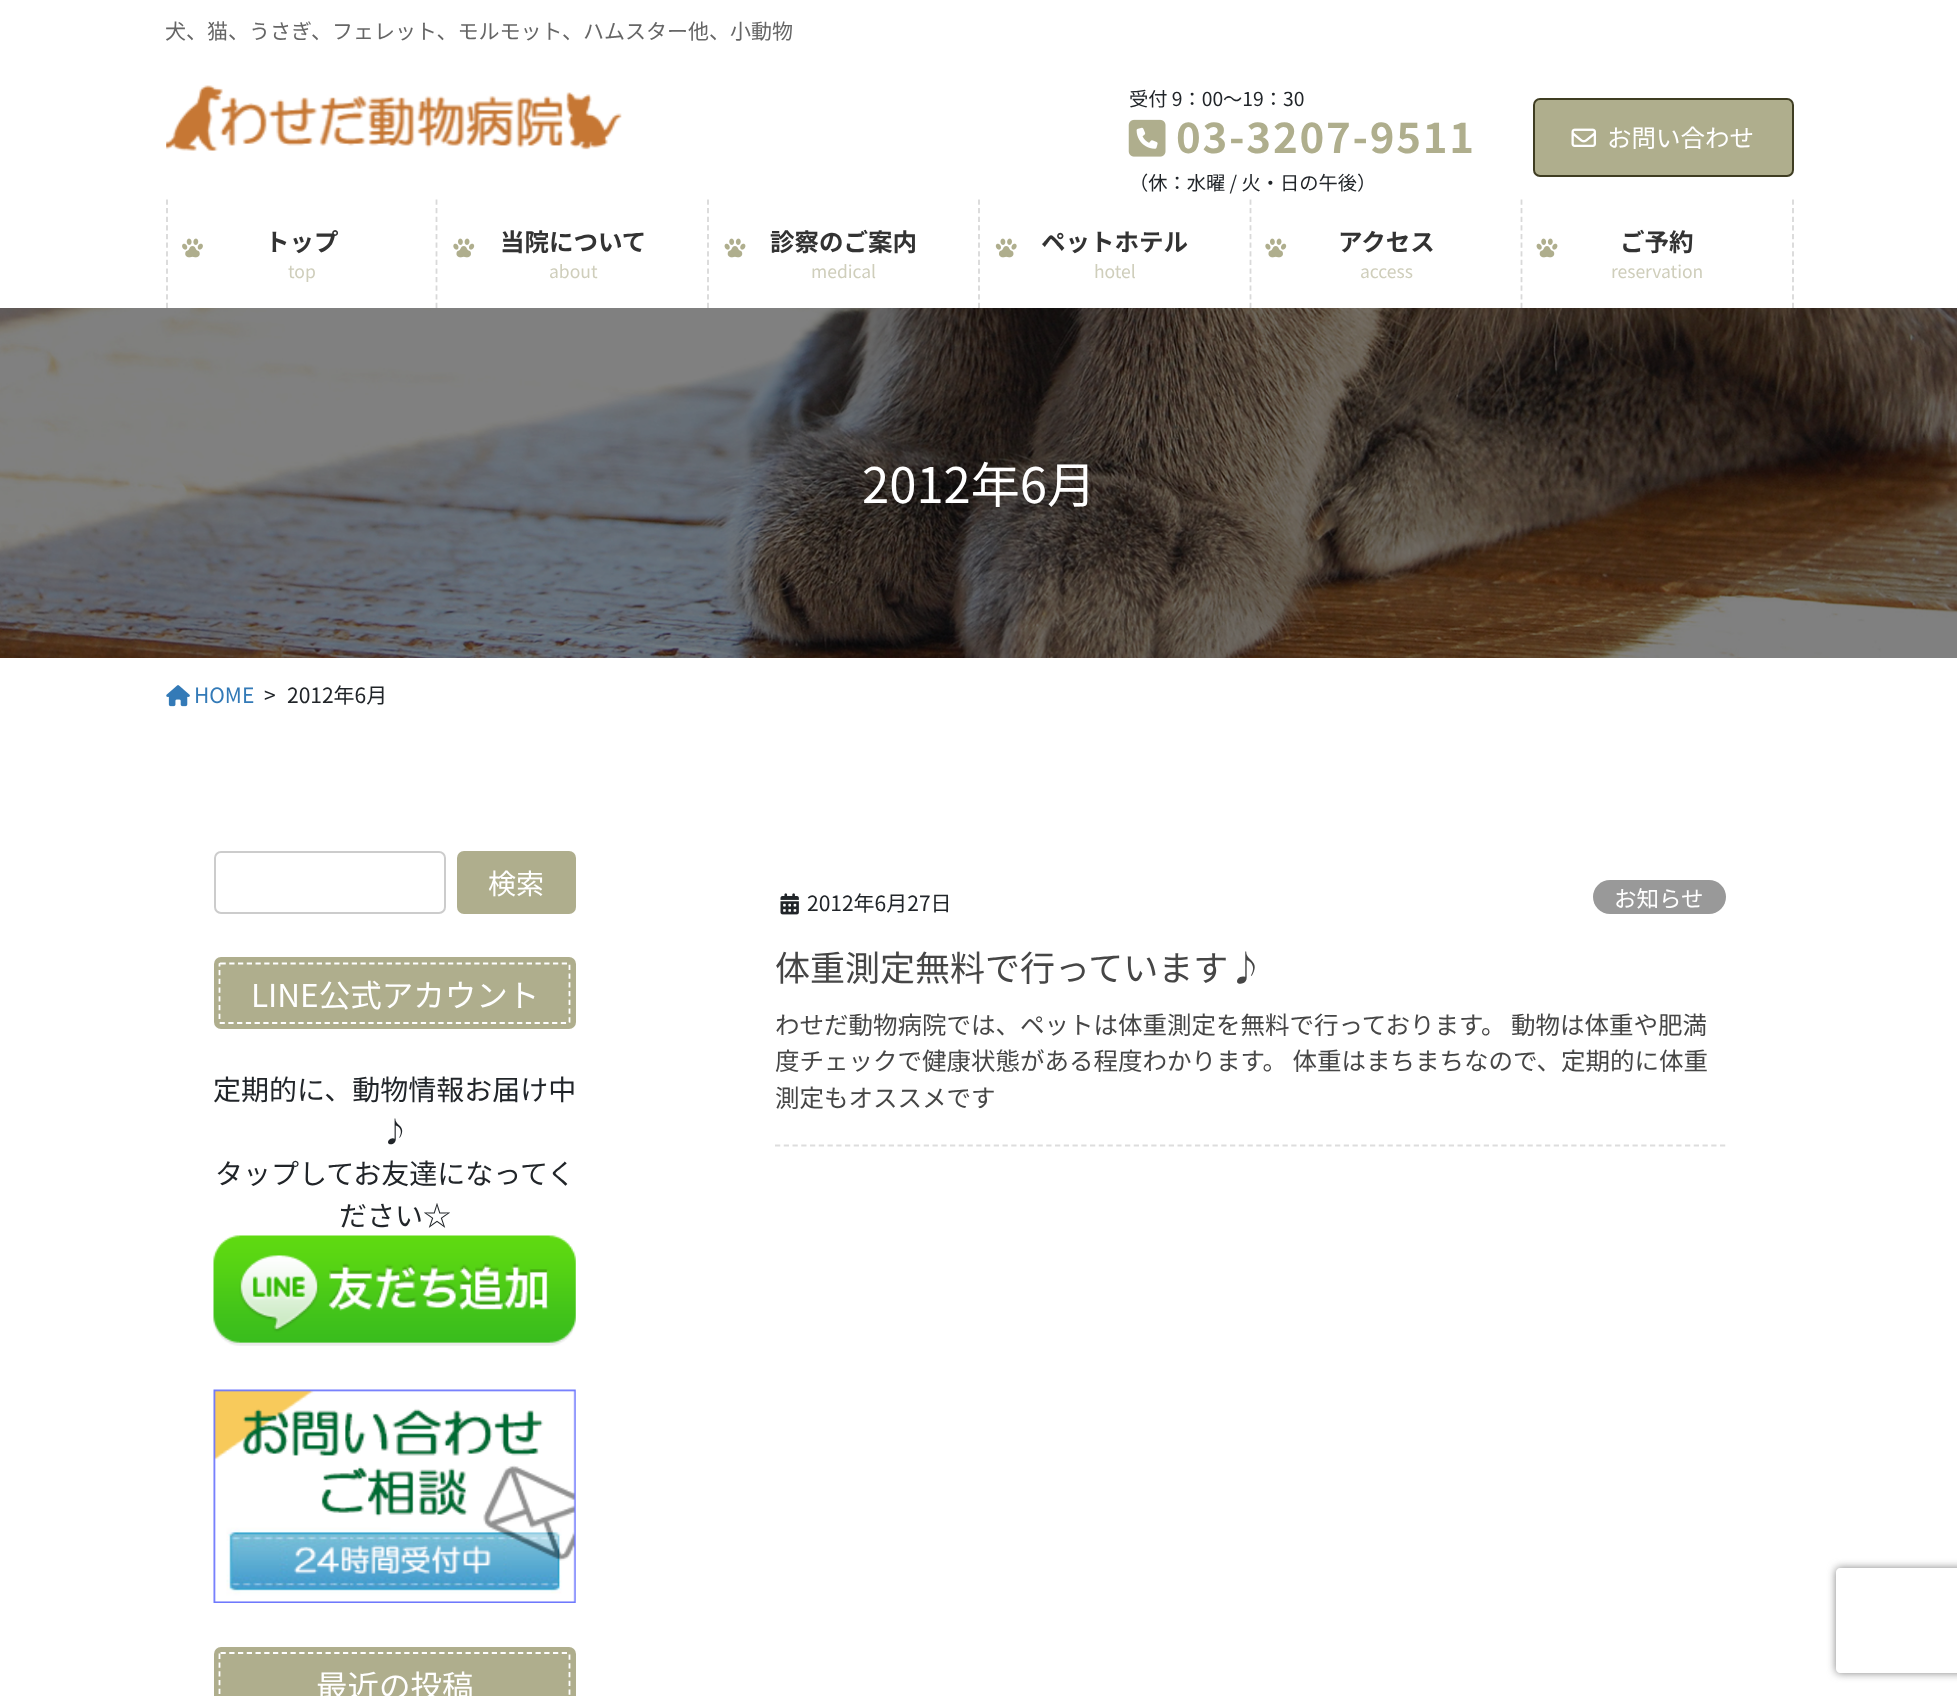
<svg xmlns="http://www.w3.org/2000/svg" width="1957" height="1696">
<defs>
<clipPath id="clip1"><path d="M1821 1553h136v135h-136zm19 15h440c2 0 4 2 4 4v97c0 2-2 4-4 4h-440c-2 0-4-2-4-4v-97c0-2 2-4 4-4z" clip-rule="evenodd"/></clipPath>
</defs>
<rect width="100%" height="100%" fill="#fff"/>
<text x="165" y="39" style="font-family:Noto Sans JP;font-size:21px;fill:#666">犬、猫、うさぎ、フェレット、モルモット、ハムスター他、小動物</text>
<image x="166" y="85" width="456" height="66" href="media/1.png"/>
<text x="1129" y="106" style="font-family:Noto Sans JP;font-size:19.25px;fill:#212529">受付 9：00～19：30</text>
<image x="1128" y="119" width="38" height="38" href="media/2.png"/>
<text x="1176" y="153" style="font-family:Noto Sans JP;font-size:42px;font-weight:bold;letter-spacing:1.75px;fill:#afae8d">03-3207-9511</text>
<text x="1129" y="190" style="font-family:Noto Sans JP;font-size:19.25px;fill:#212529">（休：水曜 / 火・日の午後）</text>
<rect x="1534" y="99" width="259" height="77" rx="6" fill="#afae8d" stroke="#3f3d22" stroke-width="2"/>
<image x="1571" y="128" width="25" height="19" href="media/3.png"/>
<text x="1607" y="147" style="font-family:Noto Sans JP;font-size:24.5px;fill:#fff">お問い合わせ</text>
<path d="M167 199.5v108.5" fill="none" stroke="#d9d9d9" stroke-width="1.8" stroke-dasharray="5.25 3.36"/>
<image x="182" y="238" width="21" height="20" href="media/4.png"/>
<text x="265" y="251" style="font-family:Noto Sans JP;font-size:24.5px;font-weight:bold;fill:#333">トップ</text>
<text x="288" y="278" style="font-family:Noto Sans JP;font-size:17.5px;fill:#cfcebb">top</text>
<path d="M436.5 199.5v108.5" fill="none" stroke="#d9d9d9" stroke-width="1.8" stroke-dasharray="5.25 3.36"/>
<image x="453" y="238" width="22" height="20" href="media/5.png"/>
<text x="500" y="251" style="font-family:Noto Sans JP;font-size:24.5px;font-weight:bold;fill:#333">当院について</text>
<text x="549" y="278" style="font-family:Noto Sans JP;font-size:17.5px;fill:#cfcebb">about</text>
<path d="M708 199.5v108.5" fill="none" stroke="#d9d9d9" stroke-width="1.8" stroke-dasharray="5.25 3.36"/>
<image x="724" y="238" width="22" height="20" href="media/6.png"/>
<text x="770" y="251" style="font-family:Noto Sans JP;font-size:24.5px;font-weight:bold;fill:#333">診察のご案内</text>
<text x="811" y="278" style="font-family:Noto Sans JP;font-size:17.5px;fill:#cfcebb">medical</text>
<path d="M979 199.5v108.5" fill="none" stroke="#d9d9d9" stroke-width="1.8" stroke-dasharray="5.25 3.36"/>
<image x="995" y="238" width="22" height="20" href="media/7.png"/>
<text x="1041" y="251" style="font-family:Noto Sans JP;font-size:24.5px;font-weight:bold;fill:#333">ペットホテル</text>
<text x="1094" y="278" style="font-family:Noto Sans JP;font-size:17.5px;fill:#cfcebb">hotel</text>
<path d="M1250.5 199.5v108.5" fill="none" stroke="#d9d9d9" stroke-width="1.8" stroke-dasharray="5.25 3.36"/>
<image x="1265" y="238" width="22" height="20" href="media/5.png"/>
<text x="1338" y="251" style="font-family:Noto Sans JP;font-size:24.5px;font-weight:bold;fill:#333">アクセス</text>
<text x="1360" y="278" style="font-family:Noto Sans JP;font-size:17.5px;fill:#cfcebb">access</text>
<path d="M1793 199.5v108.5" fill="none" stroke="#d9d9d9" stroke-width="1.8" stroke-dasharray="5.25 3.36"/>
<path d="M1521.5 199.5v108.5" fill="none" stroke="#d9d9d9" stroke-width="1.8" stroke-dasharray="5.25 3.36"/>
<image x="1536" y="238" width="22" height="20" href="media/6.png"/>
<text x="1620" y="251" style="font-family:Noto Sans JP;font-size:24.5px;font-weight:bold;fill:#333">ご予約</text>
<text x="1611" y="278" style="font-family:Noto Sans JP;font-size:17.5px;fill:#cfcebb">reservation</text>
<image x="0" y="308" width="1957" height="350" href="media/8.png"/>
<text x="862" y="503" style="font-family:Noto Sans JP;font-size:49px;fill:#fff">2012年6月</text>
<image x="166" y="685" width="24" height="22" href="media/9.png"/>
<text x="194" y="703" style="font-family:Noto Sans JP;font-size:21px;fill:#337ab7">HOME</text>
<text x="264" y="703" style="font-family:Noto Sans JP;font-size:21px;fill:#212529">&gt;</text>
<text x="287" y="703" style="font-family:Noto Sans JP;font-size:21px;fill:#212529">2012年6月</text>
<rect x="215" y="852" width="230" height="61" rx="6" fill="none" stroke="#ccc" stroke-width="2"/>
<rect x="457" y="851" width="119" height="63" rx="7" fill="#afae8d"/>
<text x="488" y="894" style="font-family:Noto Sans JP;font-size:28px;fill:#fff">検索</text>
<rect x="214" y="957" width="362" height="72" rx="7" fill="#afae8d"/>
<path d="M220.5 963.5h348.5l.5 .5v58l-.5 1h-348.5l-1-1v-58z" fill="none" stroke="#fff" stroke-width="1.8" stroke-dasharray="5.25 3.5"/>
<text x="251" y="1007" style="font-family:Noto Sans JP;font-size:31.5px;fill:#fff">LINE公式アカウント</text>
<text x="213" y="1100" style="font-family:Noto Sans JP;font-size:28px;fill:#212529">定期的に、動物情報お届け中</text>
<text x="381" y="1142" style="font-family:Noto Sans JP;font-size:28px;fill:#212529">♪</text>
<text x="215" y="1184" style="font-family:Noto Sans JP;font-size:28px;fill:#212529">タップしてお友達になってく</text>
<text x="339" y="1226" style="font-family:Noto Sans JP;font-size:28px;fill:#212529">ださい☆</text>
<image x="213" y="1235" width="363" height="111" href="media/10.png"/>
<image x="213" y="1389" width="363" height="214" href="media/11.png"/>
<rect x="214" y="1647" width="362" height="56" rx="7" fill="#afae8d"/>
<path d="M220.5 1653h348.5l.5 1v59l-.5 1h-348.5l-1-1v-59z" fill="none" stroke="#fff" stroke-width="1.8" stroke-dasharray="5.25 3.5"/>
<text x="316" y="1698" style="font-family:Noto Sans JP;font-size:31.5px;fill:#fff">最近の投稿</text>
<path d="M775 1145.5h950.5" fill="none" stroke="#ddd" stroke-width="1.8" stroke-dasharray="5.25 3.5"/>
<image x="780" y="893" width="19" height="22" href="media/12.png"/>
<text x="807" y="911" style="font-family:Noto Sans JP;font-size:21px;fill:#212529">2012年6月27日</text>
<rect x="1593" y="880" width="133" height="34" rx="17" fill="#999"/>
<text x="1614" y="907" style="font-family:Noto Sans JP;font-size:22.5px;fill:#fff">お知らせ</text>
<text x="775" y="981" style="font-family:Noto Sans JP;font-size:35px;fill:#464646">体重測定無料で行っています♪</text>
<text x="775" y="1034" style="font-family:Noto Sans JP;font-size:24.5px;fill:#464646">わせだ動物病院では、ペットは体重測定を無料で行っております。 動物は体重や肥満</text>
<text x="775" y="1070" style="font-family:Noto Sans JP;font-size:24.5px;fill:#464646">度チェックで健康状態がある程度わかります。 体重はまちまちなので、定期的に体重</text>
<text x="775" y="1107" style="font-family:Noto Sans JP;font-size:24.5px;fill:#464646">測定もオススメです</text>
<g clip-path="url(#clip1)">
<rect x="1836" y="1568" width="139" height="105" rx="4" fill="#808080" filter="blur(4.5px)"/>
</g>
</svg>
